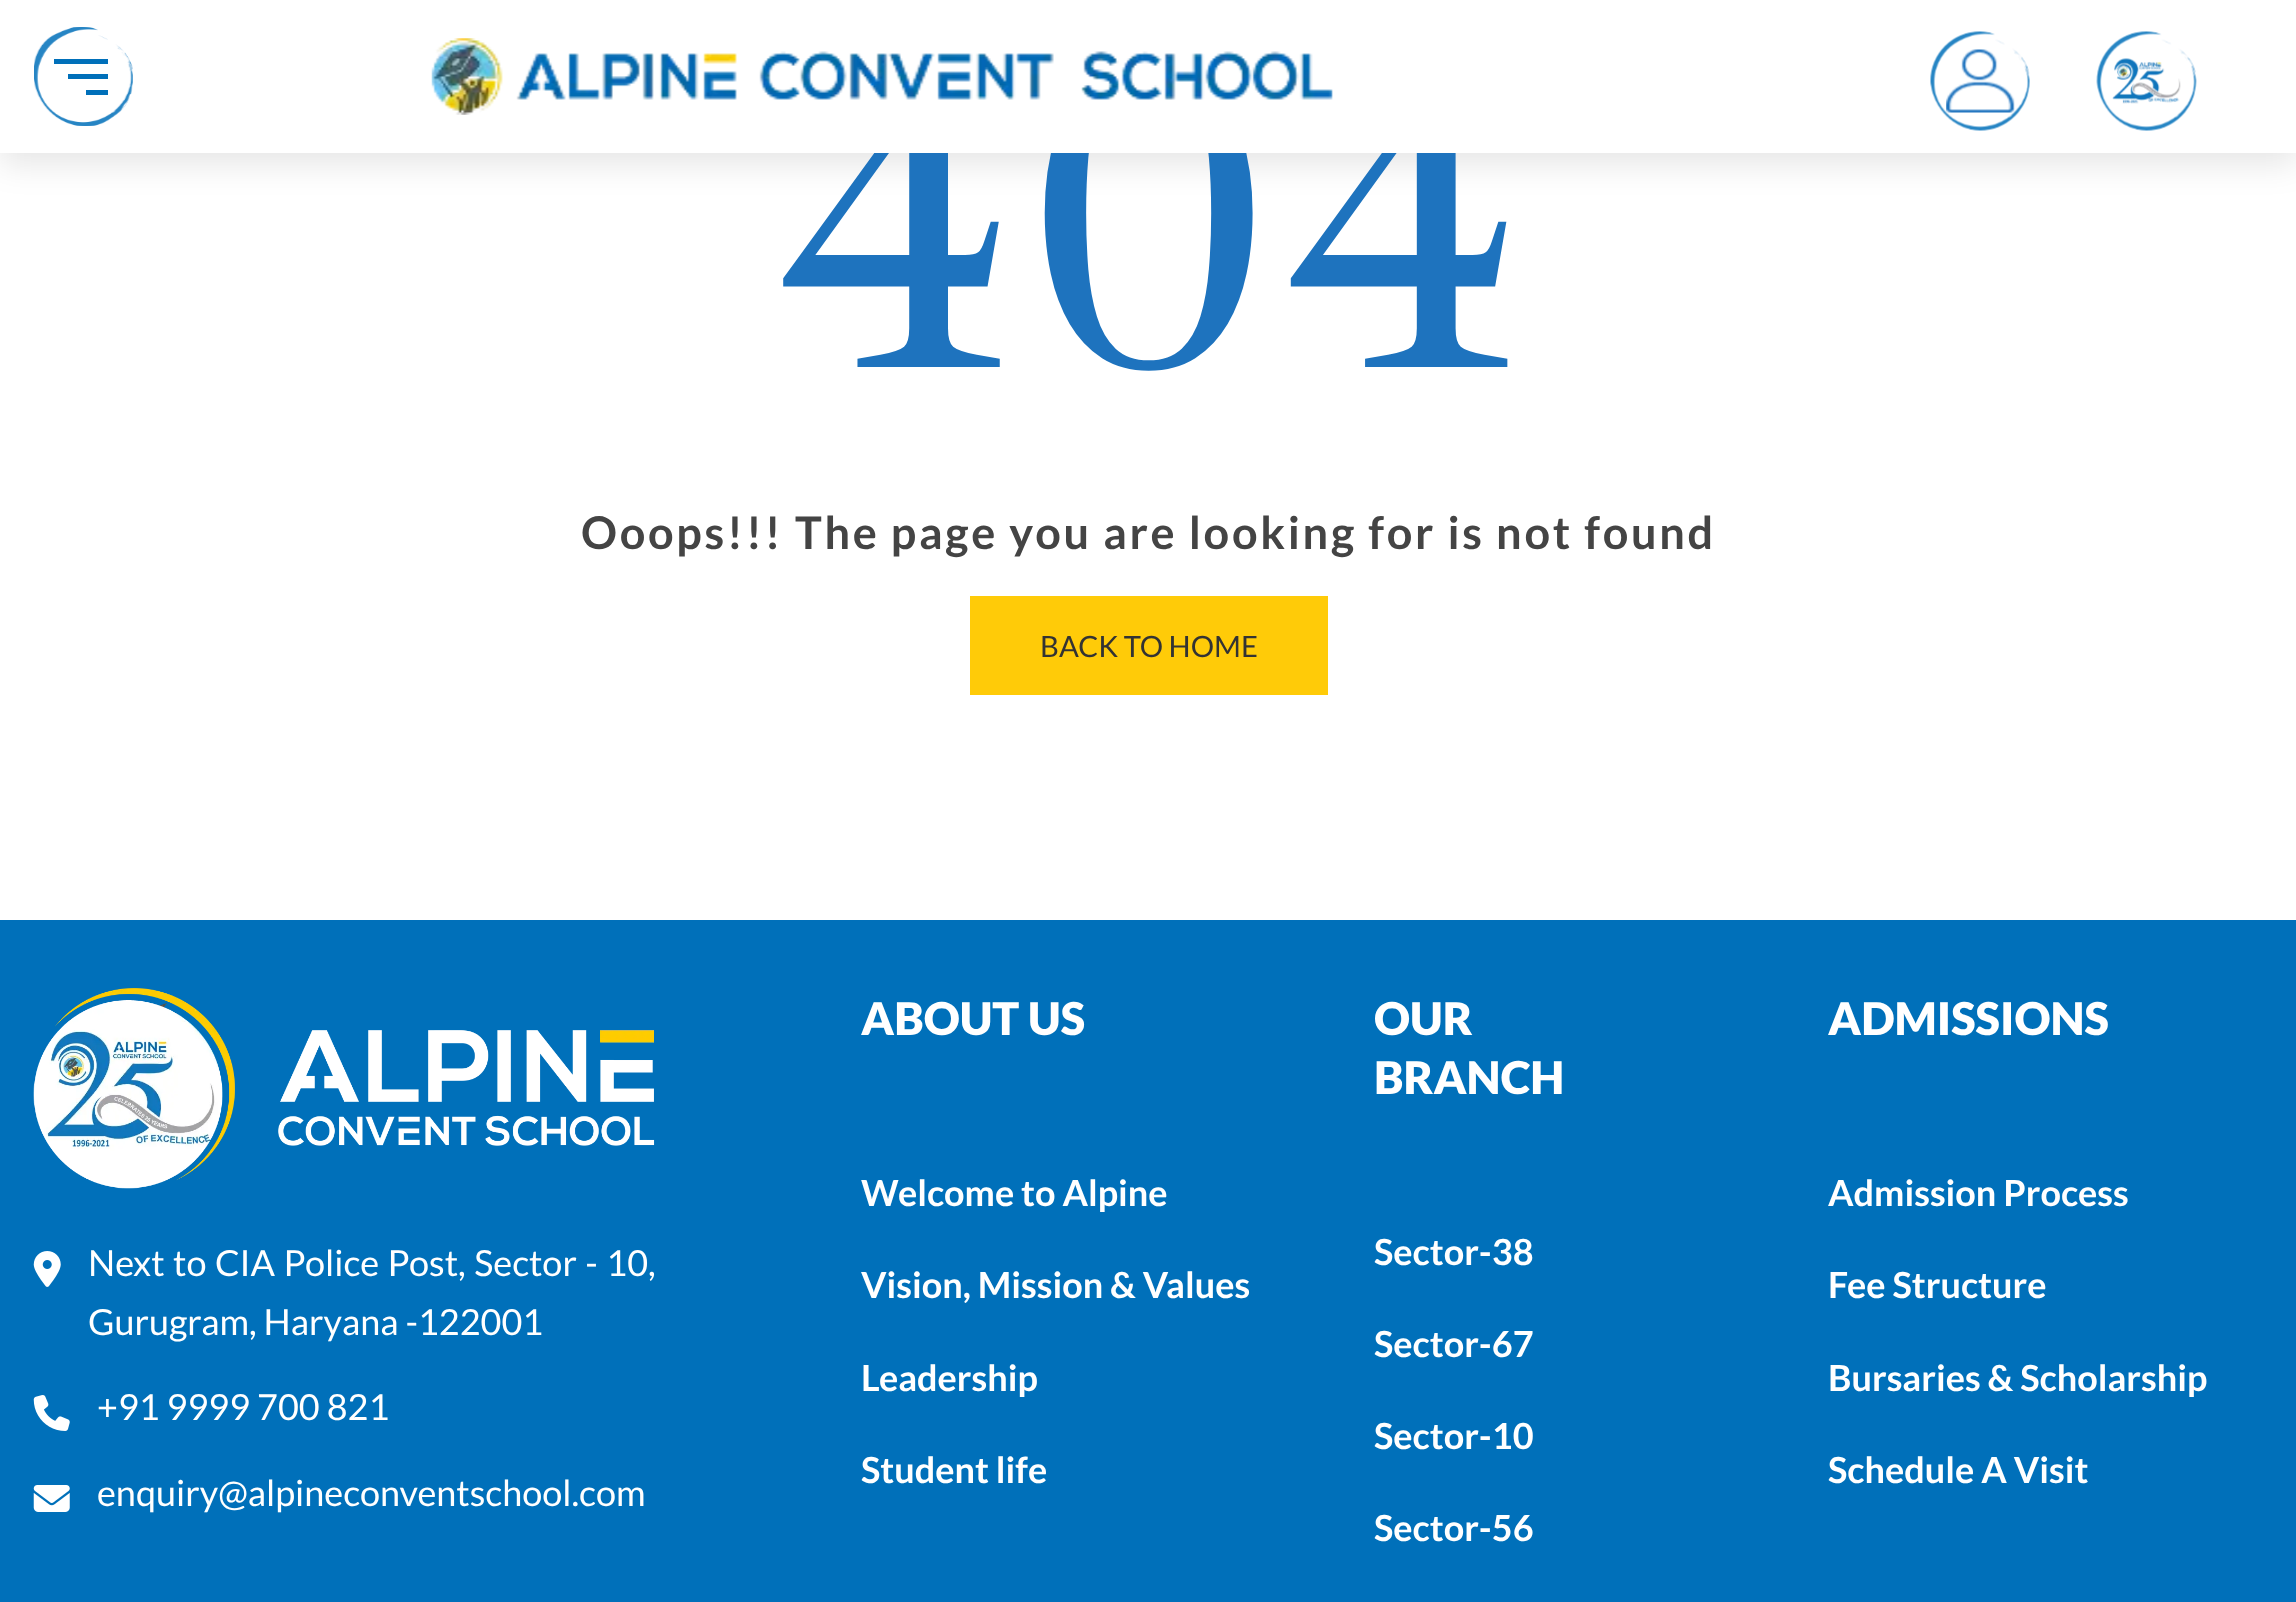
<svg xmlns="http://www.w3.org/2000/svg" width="2296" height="1602">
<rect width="100%" height="100%" fill="#fff"/>
<rect y="11" width="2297" height="153" fill="#0000001a" filter="blur(16px)"/>
<text x="772" y="367" style="font-family:Ibarra Real Nova;font-size:450px;fill:#1e73be">404</text>
<rect width="2296" height="153" fill="#fff"/>
<image x="34" y="27" width="99" height="99" href="media/1.png"/>
<rect x="54" y="59" width="54" height="5" fill="#0070ba"/>
<rect x="68" y="74" width="40" height="5" fill="#0070ba"/>
<rect x="86" y="90" width="22" height="5" fill="#0070ba"/>
<image x="431" y="38" width="902" height="77" href="media/2.png"/>
<image x="1930" y="31" width="100" height="100" href="media/3.png"/>
<image x="1946" y="49" width="69" height="64" href="media/4.png"/>
<image x="2096" y="31" width="101" height="100" href="media/5.png"/>
<image x="2112" y="58" width="69" height="46" href="media/6.png"/>
<text x="581" y="549" style="font-family:Lato;font-size:45px;font-weight:bold;letter-spacing:2.7px;fill:#444">Ooops!!! The page you are looking for is not found</text>
<rect x="970" y="596" width="358" height="99" fill="#ffcb08"/>
<text x="1040" y="657" style="font-family:Lato;font-size:29.25px;fill:#333">BACK TO HOME</text>
<rect y="920" width="2296" height="682" fill="#0070ba"/>
<image x="33" y="988" width="622" height="201" href="media/7.png"/>
<image x="33" y="1251" width="28" height="36" href="media/8.png"/>
<text x="88" y="1276" word-spacing="1.5" style="font-family:Lato;font-size:36px;fill:#fff">Next to CIA Police Post, Sector - 10,</text>
<text x="88" y="1335" style="font-family:Lato;font-size:36px;fill:#fff">Gurugram, Haryana -122001</text>
<image x="33" y="1395" width="37" height="36" href="media/9.png"/>
<text x="97" y="1420" style="font-family:Lato;font-size:36px;fill:#fff">+91 9999 700 821</text>
<image x="33" y="1485" width="37" height="27" href="media/10.png"/>
<text x="97" y="1506" style="font-family:Lato;font-size:36px;fill:#fff">enquiry@alpineconventschool.com</text>
<text x="861" y="1035" style="font-family:Lato;font-size:45px;font-weight:900;fill:#fff">ABOUT US</text>
<text x="861" y="1206" style="font-family:Lato;font-size:36px;font-weight:bold;fill:#fff">Welcome to Alpine</text>
<text x="861" y="1298" style="font-family:Lato;font-size:36px;font-weight:bold;fill:#fff">Vision, Mission &amp; Values</text>
<text x="861" y="1391" style="font-family:Lato;font-size:36px;font-weight:bold;fill:#fff">Leadership</text>
<text x="861" y="1483" style="font-family:Lato;font-size:36px;font-weight:bold;fill:#fff">Student life</text>
<text x="1374" y="1035" style="font-family:Lato;font-size:45px;font-weight:900;fill:#fff">OUR</text>
<text x="1374" y="1094" style="font-family:Lato;font-size:45px;font-weight:900;fill:#fff">BRANCH</text>
<text x="1374" y="1265" style="font-family:Lato;font-size:36px;font-weight:bold;fill:#fff">Sector-38</text>
<text x="1374" y="1357" style="font-family:Lato;font-size:36px;font-weight:bold;fill:#fff">Sector-67</text>
<text x="1374" y="1449" style="font-family:Lato;font-size:36px;font-weight:bold;fill:#fff">Sector-10</text>
<text x="1374" y="1541" style="font-family:Lato;font-size:36px;font-weight:bold;fill:#fff">Sector-56</text>
<text x="1828" y="1035" style="font-family:Lato;font-size:45px;font-weight:900;fill:#fff">ADMISSIONS</text>
<text x="1828" y="1206" style="font-family:Lato;font-size:36px;font-weight:bold;fill:#fff">Admission Process</text>
<text x="1828" y="1298" style="font-family:Lato;font-size:36px;font-weight:bold;fill:#fff">Fee Structure</text>
<text x="1828" y="1391" style="font-family:Lato;font-size:36px;font-weight:bold;fill:#fff">Bursaries &amp; Scholarship</text>
<text x="1828" y="1483" style="font-family:Lato;font-size:36px;font-weight:bold;fill:#fff">Schedule A Visit</text>
</svg>
